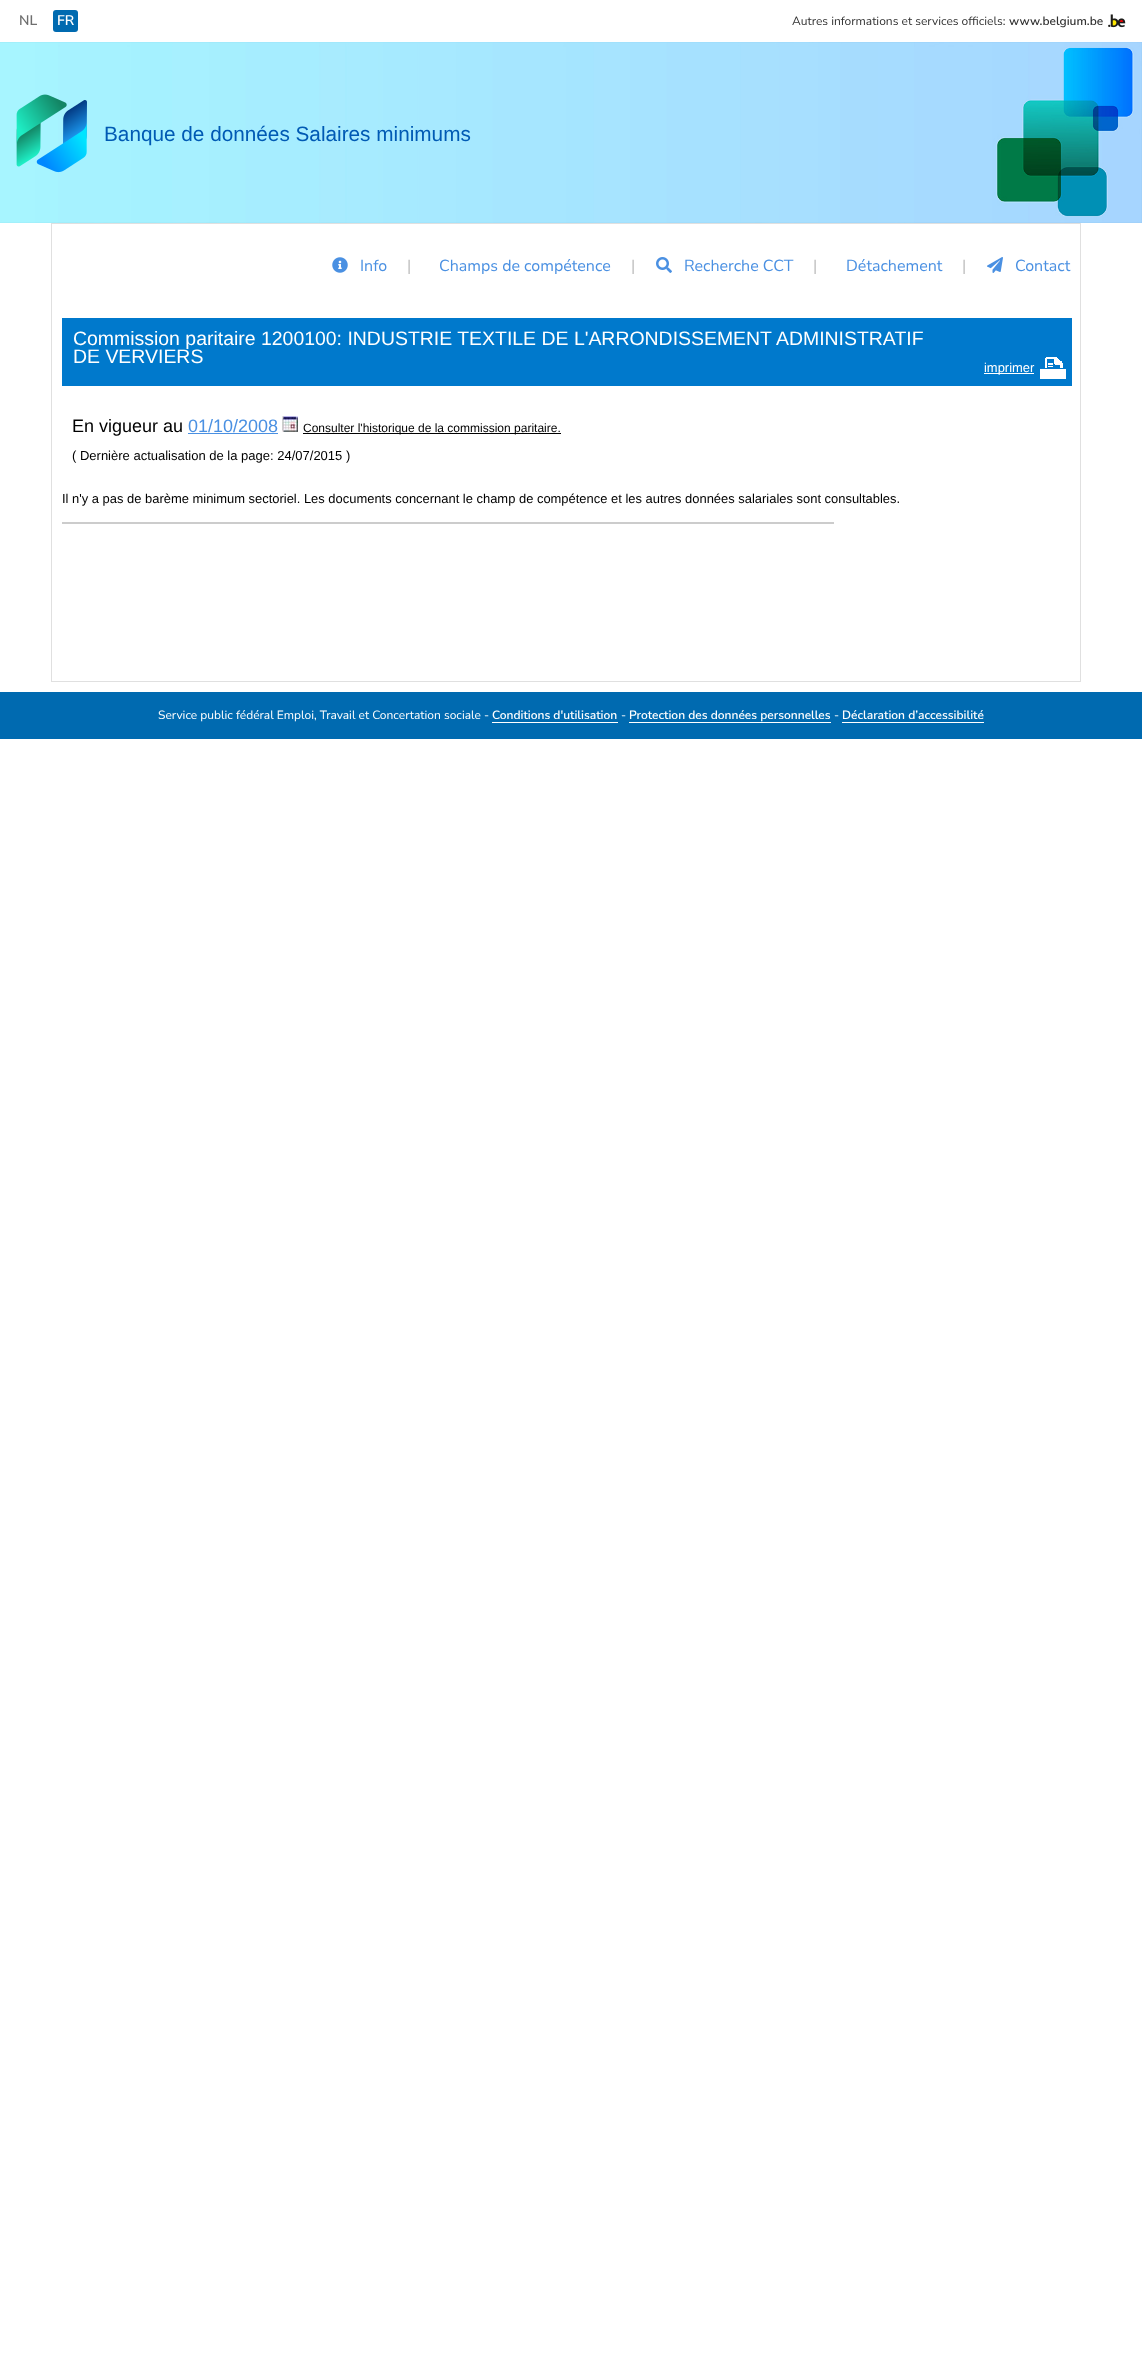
<svg xmlns="http://www.w3.org/2000/svg" width="1142" height="2366">
<rect width="100%" height="100%" fill="#fff"/>
<text x="19" y="25" style="font-family:Nunito Sans;font-size:14px;font-weight:600;fill:#6f6f6f">NL</text>
<rect x="53" y="10" width="25" height="22" rx="3" fill="#006ab0"/>
<text x="57" y="25" style="font-family:Nunito Sans;font-size:14px;font-weight:600;fill:#fff">FR</text>
<text x="792" y="25" style="font-family:Nunito Sans;font-size:12px;fill:#323232">Autres informations et services officiels:</text>
<text x="1009" y="25" style="font-family:Nunito Sans;font-size:12px;font-weight:600;fill:#323232">www.belgium.be</text>
<image x="1108" y="14" width="18" height="14" href="media/1.png"/>
<image x="0" y="42" width="1142" height="181" href="media/2.png"/>
<image x="16" y="94" width="71" height="79" href="media/3.png"/>
<text x="104" y="141" style="font-family:Liberation Sans;font-size:20.75px;fill:#005ab4">Banque de données Salaires minimums</text>
<rect x="51.5" y="223.5" width="1029" height="458" fill="none" stroke="#e0e0e0"/>
<image x="332" y="257" width="16" height="16" href="media/4.png"/>
<text x="360" y="271" style="font-family:Nunito Sans;font-size:16px;fill:#4a90e2">Info</text>
<text x="407" y="271" style="font-family:Nunito Sans;font-size:16px;fill:#bdbdbd">|</text>
<text x="439" y="271" style="font-family:Nunito Sans;font-size:16px;fill:#4a90e2">Champs de compétence</text>
<text x="631" y="271" style="font-family:Nunito Sans;font-size:16px;fill:#bdbdbd">|</text>
<image x="656" y="257" width="16" height="16" href="media/5.png"/>
<text x="684" y="271" style="font-family:Nunito Sans;font-size:16px;fill:#4a90e2">Recherche CCT</text>
<text x="813" y="271" style="font-family:Nunito Sans;font-size:16px;fill:#bdbdbd">|</text>
<text x="846" y="271" style="font-family:Nunito Sans;font-size:16px;fill:#4a90e2">Détachement</text>
<text x="962" y="271" style="font-family:Nunito Sans;font-size:16px;fill:#bdbdbd">|</text>
<image x="987" y="257" width="16" height="16" href="media/6.png"/>
<text x="1015" y="271" style="font-family:Nunito Sans;font-size:16px;fill:#4a90e2">Contact</text>
<rect x="62" y="318" width="1010" height="68" fill="#0079cc"/>
<text x="73" y="345" style="font-family:Liberation Sans;font-size:19.45px;fill:#fff">Commission paritaire 1200100: INDUSTRIE TEXTILE DE L'ARRONDISSEMENT ADMINISTRATIF</text>
<text x="73" y="363" style="font-family:Liberation Sans;font-size:19.45px;fill:#fff">DE VERVIERS</text>
<image x="1040" y="357" width="26" height="22" href="media/7.png"/>
<rect x="984" y="373" width="50" height="1" fill="#fff"/>
<text x="984" y="372" style="font-family:Liberation Sans;font-size:12.95px;fill:#fff">imprimer</text>
<text x="72" y="432" style="font-family:Liberation Sans;font-size:18px;fill:#000">En vigueur au</text>
<text x="188" y="432" style="font-family:Liberation Sans;font-size:18px;fill:#4a90e2">01/10/2008</text>
<rect x="188" y="433" width="90" height="1" fill="#4a90e2"/>
<image x="282" y="416" width="16" height="16" href="media/8.png"/>
<rect x="303" y="433" width="258" height="1" fill="#000"/>
<text x="303" y="432" style="font-family:Liberation Sans;font-size:12px;fill:#000">Consulter l'historique de la commission paritaire.</text>
<text x="72" y="460" style="font-family:Liberation Sans;font-size:13px;fill:#000">( Dernière actualisation de la page: 24/07/2015 )</text>
<text x="62" y="503" style="font-family:Liberation Sans;font-size:12.95px;fill:#000">Il n'y a pas de barème minimum sectoriel. Les documents concernant le champ de compétence et les autres données salariales sont consultables.</text>
<rect x="62" y="522" width="772" height="2" fill="#ccc"/>
<rect y="692" width="1142" height="47" fill="#006ab0"/>
<text x="158" y="719" style="font-family:Nunito Sans;font-size:12px;fill:#fff">Service public fédéral Emploi, Travail et Concertation sociale -</text>
<text x="492" y="719" style="font-family:Nunito Sans;font-size:12px;font-weight:600;fill:#fff">Conditions d'utilisation</text>
<rect x="492" y="722" width="126" height="1" fill="#fff"/>
<text x="621" y="719" style="font-family:Nunito Sans;font-size:12px;fill:#fff">-</text>
<text x="629" y="719" style="font-family:Nunito Sans;font-size:12px;font-weight:600;fill:#fff">Protection des données personnelles</text>
<rect x="629" y="722" width="202" height="1" fill="#fff"/>
<text x="834" y="719" style="font-family:Nunito Sans;font-size:12px;fill:#fff">-</text>
<text x="842" y="719" style="font-family:Nunito Sans;font-size:12px;font-weight:600;fill:#fff">Déclaration d’accessibilité</text>
<rect x="842" y="722" width="142" height="1" fill="#fff"/>
</svg>
